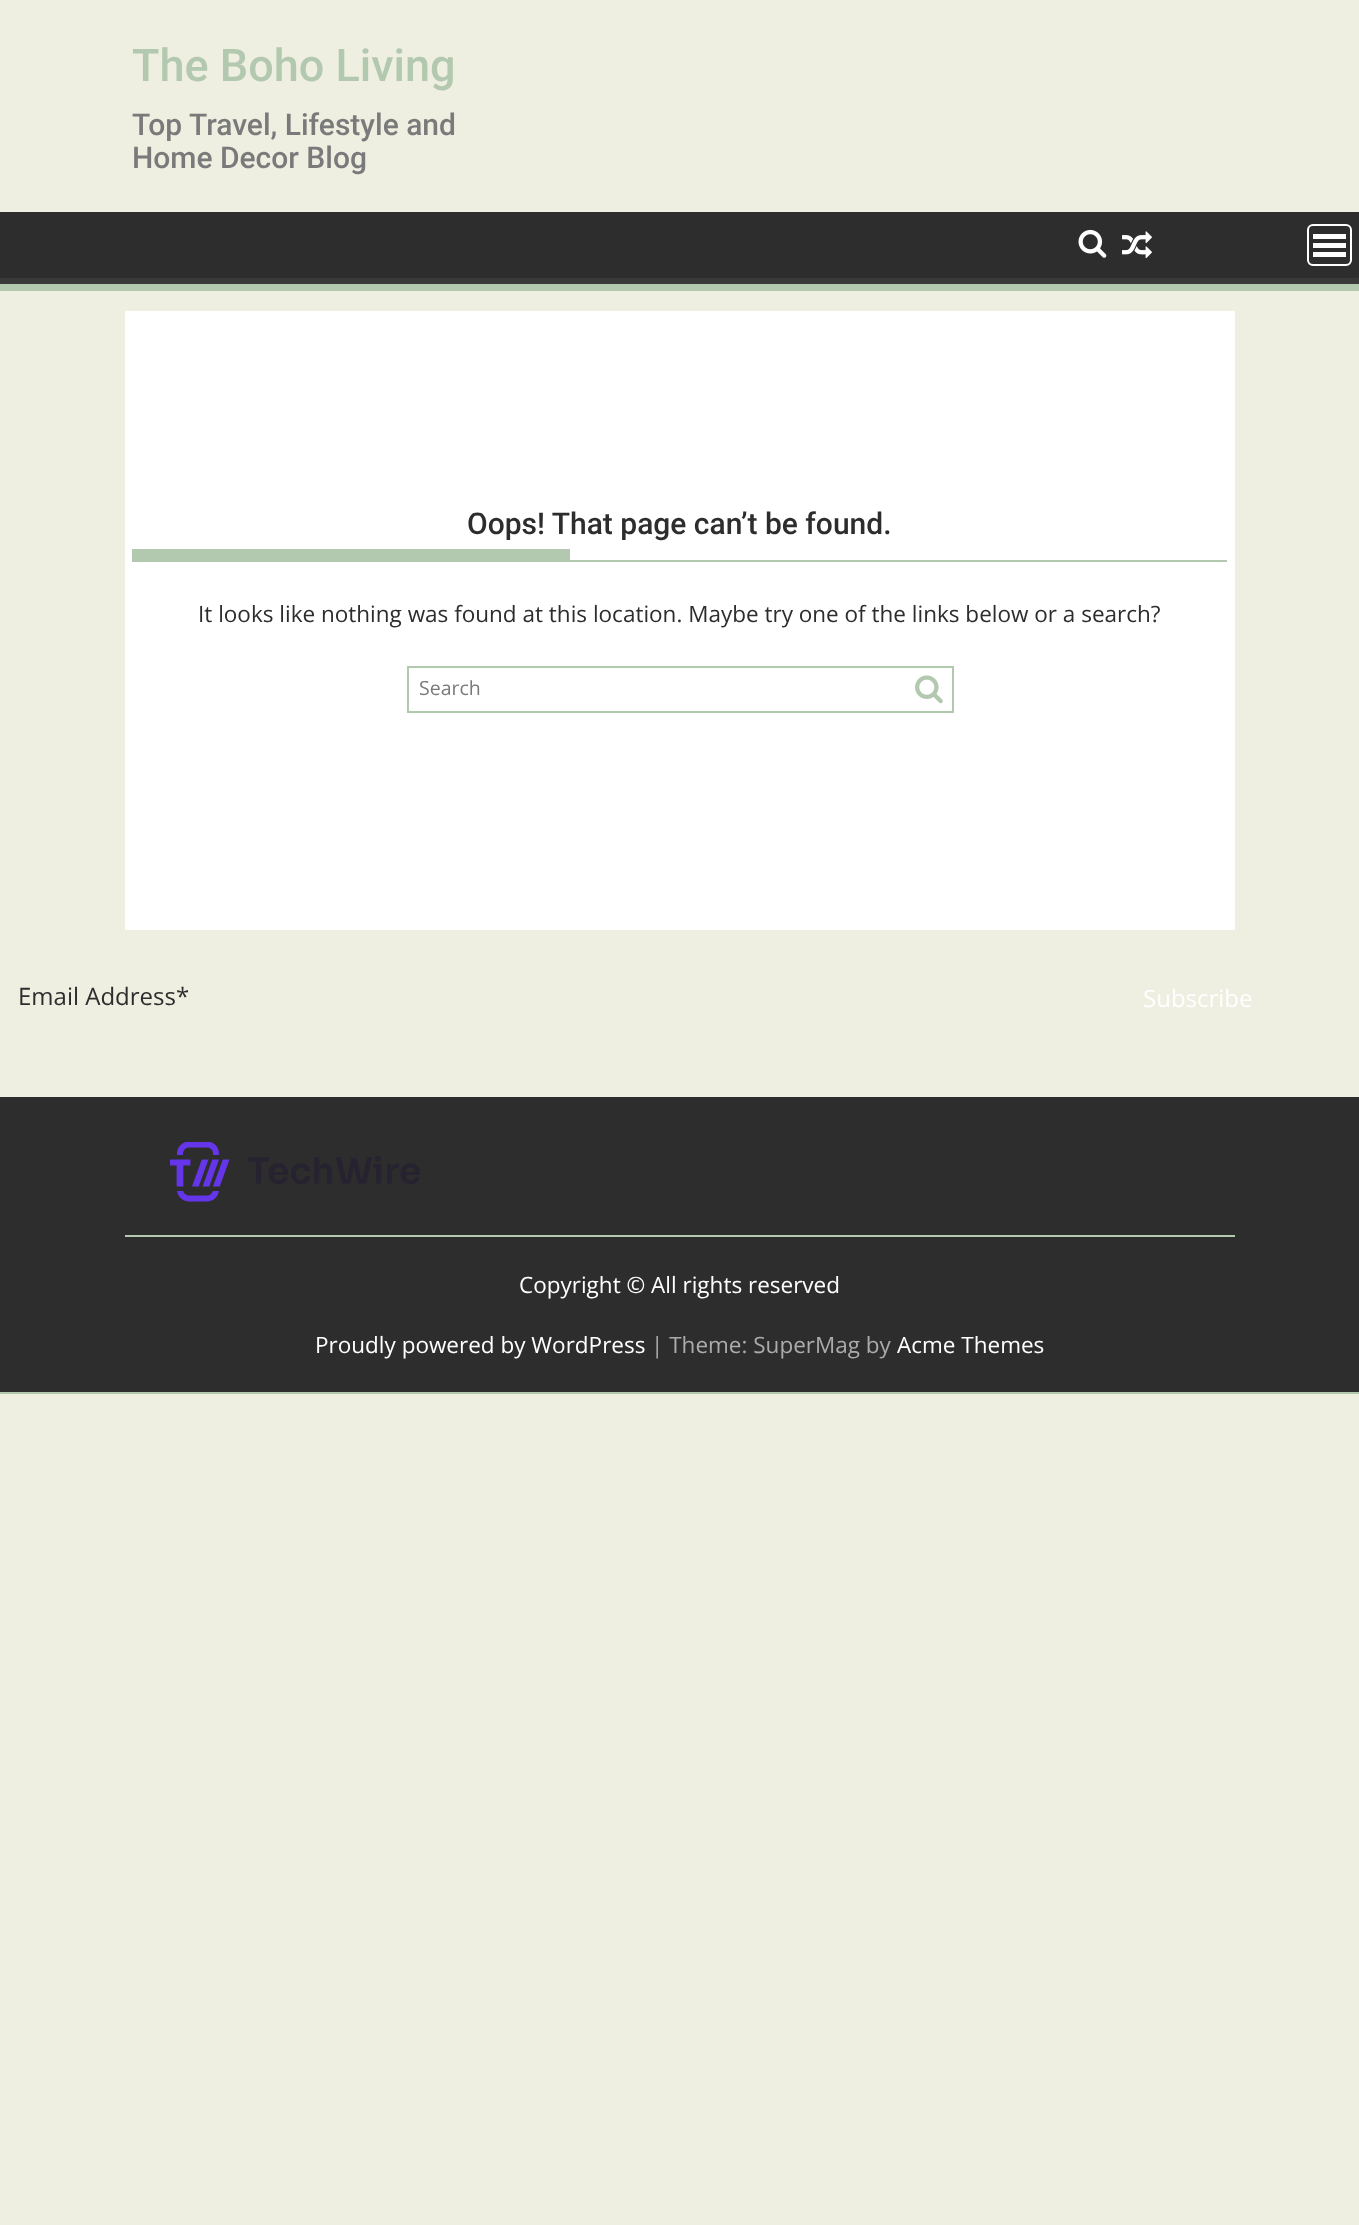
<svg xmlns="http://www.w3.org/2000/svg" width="1359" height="2225">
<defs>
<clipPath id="clip1"><rect y="212" width="1359" height="72"/></clipPath>
</defs>
<rect width="100%" height="100%" fill="#eeeee1"/>
<text x="132" y="81" style="font-family:Roboto;font-size:45px;font-weight:500;fill:#b3c9af">The Boho Living</text>
<text x="132" y="135" style="font-family:Roboto;font-size:30px;font-weight:500;fill:#7a7a7a">Top Travel, Lifestyle and</text>
<text x="132" y="168" style="font-family:Roboto;font-size:30px;font-weight:500;fill:#7a7a7a">Home Decor Blog</text>
<rect y="212" width="1359" height="66" fill="#2d2d2d"/>
<g clip-path="url(#clip1)">
<path d="M-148 63h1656v369h-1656zm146 139h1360c0 0 1 1 1 2v72c0 1-1 2-1 2h-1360c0 0-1-1-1-2v-72c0-1 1-2 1-2z" fill="#393939" fill-rule="evenodd"/>
</g>
<rect y="284" width="1359" height="7" fill="#b3c9af"/>
<image x="1078" y="229" width="29" height="29" href="media/1.png"/>
<image x="1122" y="231" width="30" height="27" href="media/2.png"/>
<rect x="1308" y="225" width="43" height="40" rx="5" fill="none" stroke="#fff" stroke-width="2"/>
<rect x="1313" y="252" width="33" height="5" fill="#fff"/>
<rect x="1313" y="243" width="33" height="5" fill="#fff"/>
<rect x="1313" y="234" width="33" height="5" fill="#fff"/>
<rect x="125" y="311" width="1110" height="619" fill="#fff"/>
<rect x="132" y="560" width="1095" height="2" fill="#b3c9af"/>
<text x="467" y="534" style="font-family:Roboto;font-size:30px;font-weight:500;fill:#2d2d2d">Oops! That page can’t be found.</text>
<rect x="132" y="549" width="438" height="11" fill="#b3c9af"/>
<text x="198" y="622" style="font-family:Open Sans;font-size:22.5px;fill:#2d2d2d">It looks like nothing was found at this location. Maybe try one of the links below or a search?</text>
<rect x="408" y="667" width="545" height="45" fill="none" stroke="#b3c9af" stroke-width="2"/>
<text x="419" y="695" style="font-family:Open Sans;font-size:19.5px;fill:#7a7a7a">Search</text>
<image x="915" y="675" width="28" height="29" href="media/3.png"/>
<text x="18" y="1005" style="font-family:Open Sans;font-size:24px;fill:#2d2d2d">Email Address*</text>
<text x="1143" y="1007" style="font-family:Open Sans;font-size:24px;fill:#fff">Subscribe</text>
<rect y="1097" width="1359" height="295" fill="#2d2d2d"/>
<rect y="1392" width="1359" height="2" fill="#b3c9af"/>
<image x="170" y="1142" width="250" height="60" href="media/4.png"/>
<rect x="125" y="1235" width="1110" height="2" fill="#b3c9af"/>
<text x="519" y="1293" style="font-family:Open Sans;font-size:22.5px;fill:#fff">Copyright © All rights reserved</text>
<text x="315" y="1353" style="font-family:Open Sans;font-size:22.5px;fill:#fff">Proudly powered by WordPress</text>
<text x="651" y="1353" style="font-family:Open Sans;font-size:22.5px;fill:#ababab">| Theme: SuperMag by</text>
<text x="897" y="1353" style="font-family:Open Sans;font-size:22.5px;fill:#fff">Acme Themes</text>
</svg>
